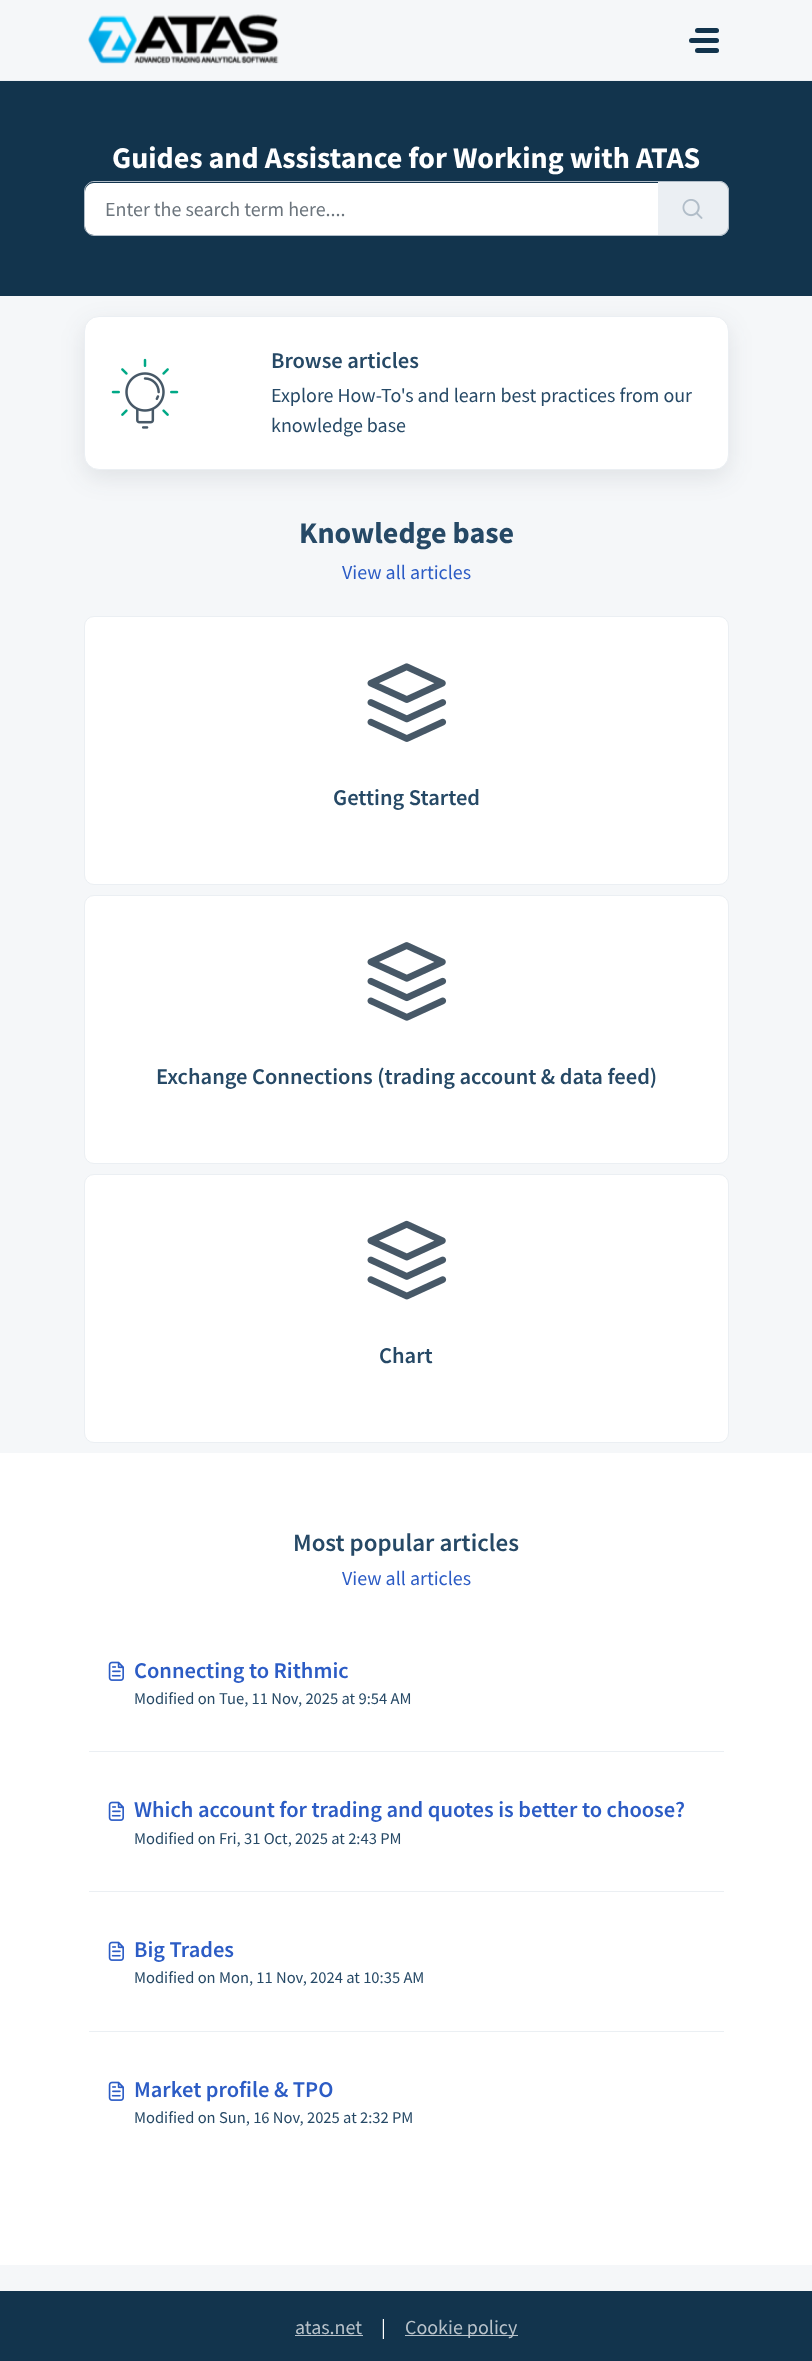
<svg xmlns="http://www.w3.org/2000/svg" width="812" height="2361">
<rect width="100%" height="100%" fill="#f5f7f9"/>
<rect y="80" width="812" height="1" fill="#ebeff3"/>
<image x="88" y="14" width="191" height="50" href="media/1.png"/>
<rect x="695" y="28" width="24" height="5" rx="2.5" fill="#12344d"/>
<rect x="689" y="38" width="30" height="5" rx="2.5" fill="#12344d"/>
<rect x="695" y="48" width="24" height="5" rx="2.5" fill="#12344d"/>
<rect y="81" width="812" height="215" fill="#12344d"/>
<text x="112" y="168" style="font-family:Source Sans Pro;font-size:30px;font-weight:bold;fill:#fff">Guides and Assistance for Working with ATAS</text>
<path d="M94 183h564v52h-564c-5 0-9-4-9-9v-34c0-5 4-9 9-9z" fill="#fff"/>
<path d="M94 181.5h564.5v54h-564.5c-5 0-9.5-4.5-9.5-9.5v-35c0-5 4.5-9.5 9.5-9.5z" fill="none" stroke="#b1bdc8"/>
<text x="105" y="216" style="font-family:Source Sans Pro;font-size:20px;fill:#6c757d">Enter the search term here....</text>
<path d="M658 181h61c5.5 0 10 4.5 10 10v35c0 5.5-4.5 10-10 10h-61z" fill="#ebeff3"/>
<path d="M658 181h61c5 0 10 5 10 10v35c0 6-5 10-10 10h-61zm0 1h61c5 0 9 4 9 9v35c0 5-4 9-9 9h-61z" fill="#b1bdc8" fill-rule="evenodd"/>
<image x="682" y="199" width="21" height="20" href="media/2.png"/>
<rect x="84" y="324" width="645" height="154" rx="15" fill="#27313a1a" filter="blur(12px)"/>
<rect x="84.5" y="316.5" width="644" height="153" rx="14.5" fill="#fff" stroke="#ebeff3"/>
<image x="111" y="358" width="68" height="71" href="media/3.png"/>
<text x="271" y="368" style="font-family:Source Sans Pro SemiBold;font-size:22.5px;font-weight:600;fill:#264966">Browse articles</text>
<text x="271" y="402" style="font-family:Source Sans Pro;font-size:20px;fill:#264966">Explore How-To's and learn best practices from our</text>
<text x="271" y="432" style="font-family:Source Sans Pro;font-size:20px;fill:#264966">knowledge base</text>
<text x="299" y="543" style="font-family:Source Sans Pro;font-size:30px;font-weight:bold;fill:#264966">Knowledge base</text>
<text x="342" y="579" style="font-family:Source Sans Pro;font-size:20px;fill:#2c5cc5">View all articles</text>
<rect x="84.5" y="616.5" width="644" height="268" rx="9.5" fill="#fff" stroke="#ebeff3"/>
<image x="367" y="663" width="80" height="79" href="media/4.png"/>
<text x="333" y="805" style="font-family:Source Sans Pro SemiBold;font-size:22.5px;font-weight:600;fill:#264966">Getting Started</text>
<rect x="84.5" y="895.5" width="644" height="268" rx="9.5" fill="#fff" stroke="#ebeff3"/>
<image x="367" y="942" width="80" height="79" href="media/5.png"/>
<text x="156" y="1084" style="font-family:Source Sans Pro SemiBold;font-size:22.5px;font-weight:600;fill:#264966">Exchange Connections (trading account &amp; data feed)</text>
<rect x="84.5" y="1174.5" width="644" height="268" rx="9.5" fill="#fff" stroke="#ebeff3"/>
<image x="367" y="1220" width="80" height="80" href="media/6.png"/>
<text x="379" y="1363" style="font-family:Source Sans Pro SemiBold;font-size:22.5px;font-weight:600;fill:#264966">Chart</text>
<rect y="1453" width="812" height="812" fill="#fff"/>
<text x="293" y="1551" style="font-family:Source Sans Pro SemiBold;font-size:25px;font-weight:600;fill:#264966">Most popular articles</text>
<text x="342" y="1585" style="font-family:Source Sans Pro;font-size:20px;fill:#2c5cc5">View all articles</text>
<rect x="89" y="1751" width="635" height="1" fill="#ebeff3"/>
<image x="108" y="1661" width="16" height="20" href="media/7.png"/>
<text x="134" y="1678" style="font-family:Source Sans Pro SemiBold;font-size:22.5px;font-weight:600;fill:#2c5cc5">Connecting to Rithmic</text>
<text x="134" y="1704" style="font-family:Source Sans Pro;font-size:16.5px;fill:#264966">Modified on Tue, 11 Nov, 2025 at 9:54 AM</text>
<rect x="89" y="1891" width="635" height="1" fill="#ebeff3"/>
<image x="108" y="1801" width="16" height="20" href="media/7.png"/>
<text x="134" y="1817" style="font-family:Source Sans Pro SemiBold;font-size:22.5px;font-weight:600;fill:#2c5cc5">Which account for trading and quotes is better to choose?</text>
<text x="134" y="1844" style="font-family:Source Sans Pro;font-size:16.5px;fill:#264966">Modified on Fri, 31 Oct, 2025 at 2:43 PM</text>
<rect x="89" y="2031" width="635" height="1" fill="#ebeff3"/>
<image x="108" y="1941" width="16" height="20" href="media/7.png"/>
<text x="134" y="1957" style="font-family:Source Sans Pro SemiBold;font-size:22.5px;font-weight:600;fill:#2c5cc5">Big Trades</text>
<text x="134" y="1983" style="font-family:Source Sans Pro;font-size:16.5px;fill:#264966">Modified on Mon, 11 Nov, 2024 at 10:35 AM</text>
<image x="108" y="2081" width="16" height="20" href="media/7.png"/>
<text x="134" y="2097" style="font-family:Source Sans Pro SemiBold;font-size:22.5px;font-weight:600;fill:#2c5cc5">Market profile &amp; TPO</text>
<text x="134" y="2123" style="font-family:Source Sans Pro;font-size:16.5px;fill:#264966">Modified on Sun, 16 Nov, 2025 at 2:32 PM</text>
<rect y="2291" width="812" height="70" fill="#12344d"/>
<text x="295" y="2334" style="font-family:Source Sans Pro;font-size:20px;fill:#b8c2ca">atas.net</text>
<rect x="295" y="2335" width="68" height="1" fill="#b8c2ca"/>
<text x="381" y="2334" style="font-family:Source Sans Pro;font-size:20px;fill:#fff">|</text>
<rect x="405" y="2335" width="113" height="1" fill="#b8c2ca"/>
<text x="405" y="2334" style="font-family:Source Sans Pro;font-size:20px;fill:#b8c2ca">Cookie policy</text>
</svg>
